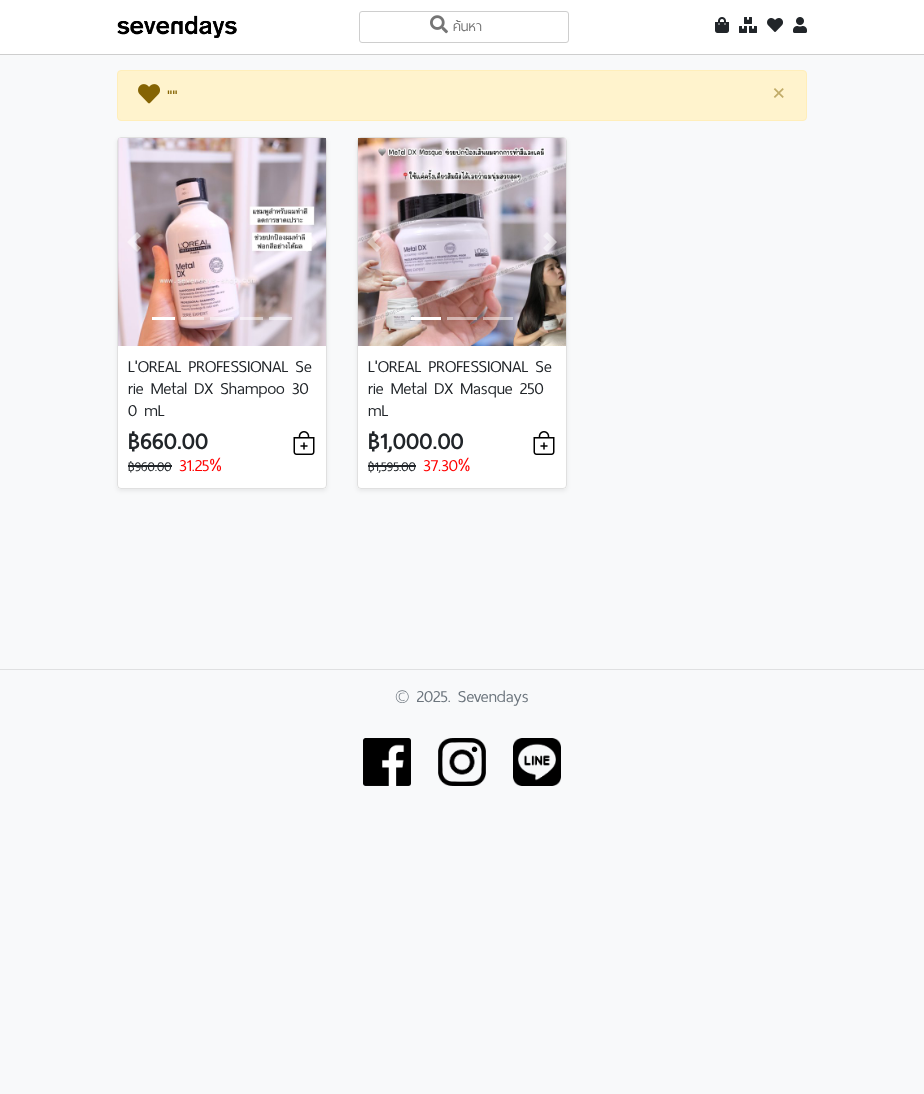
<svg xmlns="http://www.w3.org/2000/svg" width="924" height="1094">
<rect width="100%" height="100%" fill="#f8f9fa"/>
<rect width="924" height="54" fill="#fff"/>
<rect y="54" width="924" height="1" fill="#cecece"/>
<image x="117" y="15" width="120" height="23" href="media/1.png"/>
<rect x="359.5" y="11.5" width="209" height="31" rx="2.5" fill="none" stroke="#cecece"/>
<image x="430" y="15" width="18" height="19" href="media/2.png"/>
<text x="453" y="31" style="font-family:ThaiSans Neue;font-size:18px;fill:#757575">ค้นหา</text>
<image x="715" y="17" width="14" height="16" href="media/3.png"/>
<image x="739" y="17" width="18" height="16" href="media/4.png"/>
<image x="767" y="18" width="16" height="14" href="media/5.png"/>
<image x="793" y="17" width="14" height="16" href="media/6.png"/>
<rect x="117.5" y="70.5" width="689" height="50" rx="3.5" fill="#fff3cd" stroke="#ffeeba"/>
<image x="138" y="84" width="22" height="20" href="media/7.png"/>
<text x="167" y="102" style="font-family:ThaiSans Neue;font-size:22px;fill:#856404">""</text>
<text x="772" y="101" style="font-family:Liberation Serif;font-size:24px;font-weight:bold;fill:#c2ac69">×</text>
<rect x="117" y="139" width="210" height="352" rx="4" fill="#00000012" filter="blur(2px)"/>
<rect x="117" y="137" width="210" height="352" rx="4" fill="#fff"/>
<rect x="117.5" y="137.5" width="209" height="351" rx="3.5" fill="none" stroke="#0000001f"/>
<image x="118" y="138" width="208" height="208" href="media/8.png"/>
<path d="M137 232l-10 10l10 10l4-4l-6.5-6l6.5-6z" fill="#ffffff80"/>
<path d="M307 232l-4 4l6.5 6l-6.5 6l4 4l10-10z" fill="#ffffff80"/>
<rect x="152" y="317" width="23" height="3" fill="#fff"/>
<rect x="181" y="317" width="23" height="3" fill="#ffffff80"/>
<rect x="210" y="317" width="24" height="3" fill="#ffffff80"/>
<rect x="240" y="317" width="23" height="3" fill="#ffffff80"/>
<rect x="269" y="317" width="23" height="3" fill="#ffffff80"/>
<text x="128" y="372" style="font-family:ThaiSans Neue;font-size:22px;fill:#212529">L'OREAL PROFESSIONAL Se</text>
<text x="128" y="394" style="font-family:ThaiSans Neue;font-size:22px;fill:#212529">rie Metal DX Shampoo 30</text>
<text x="128" y="416" style="font-family:ThaiSans Neue;font-size:22px;fill:#212529">0 mL</text>
<text x="128" y="449" style="font-family:ThaiSans Neue;font-size:30px;font-weight:bold;fill:#212529">฿660.00</text>
<text x="128" y="471" style="font-family:ThaiSans Neue;font-size:17.5px;fill:#212529">฿960.00</text>
<rect x="128" y="465" width="44" height="2" fill="#212529"/>
<text x="179" y="471" style="font-family:ThaiSans Neue;font-size:22px;fill:#f00">31.25%</text>
<image x="293" y="431" width="22" height="24" href="media/9.png"/>
<rect x="357" y="139" width="210" height="352" rx="4" fill="#00000012" filter="blur(2px)"/>
<rect x="357" y="137" width="210" height="352" rx="4" fill="#fff"/>
<rect x="357.5" y="137.5" width="209" height="351" rx="3.5" fill="none" stroke="#0000001f"/>
<image x="358" y="138" width="208" height="208" href="media/10.png"/>
<path d="M377 232l-10 10l10 10l4-4l-6.5-6l6.5-6z" fill="#ffffff80"/>
<path d="M547 232l-4 4l6.5 6l-6.5 6l4 4l10-10z" fill="#ffffff80"/>
<rect x="411" y="317" width="30" height="3" fill="#fff"/>
<rect x="447" y="317" width="30" height="3" fill="#ffffff80"/>
<rect x="483" y="317" width="30" height="3" fill="#ffffff80"/>
<text x="368" y="372" style="font-family:ThaiSans Neue;font-size:22px;fill:#212529">L'OREAL PROFESSIONAL Se</text>
<text x="368" y="394" style="font-family:ThaiSans Neue;font-size:22px;fill:#212529">rie Metal DX Masque 250</text>
<text x="368" y="416" style="font-family:ThaiSans Neue;font-size:22px;fill:#212529">mL</text>
<text x="368" y="449" style="font-family:ThaiSans Neue;font-size:30px;font-weight:bold;fill:#212529">฿1,000.00</text>
<text x="368" y="471" style="font-family:ThaiSans Neue;font-size:17.5px;fill:#212529">฿1,595.00</text>
<rect x="368" y="465" width="48" height="2" fill="#212529"/>
<text x="423" y="471" style="font-family:ThaiSans Neue;font-size:22px;fill:#f00">37.30%</text>
<image x="533" y="431" width="22" height="24" href="media/9.png"/>
<rect y="669" width="924" height="1" fill="#dfe0e1"/>
<text x="395" y="702" style="font-family:ThaiSans Neue;font-size:22px;fill:#6c757d">© 2025. Sevendays</text>
<image x="363" y="738" width="48" height="48" href="media/11.png"/>
<image x="438" y="738" width="48" height="48" href="media/12.png"/>
<image x="513" y="738" width="48" height="48" href="media/13.png"/>
</svg>
